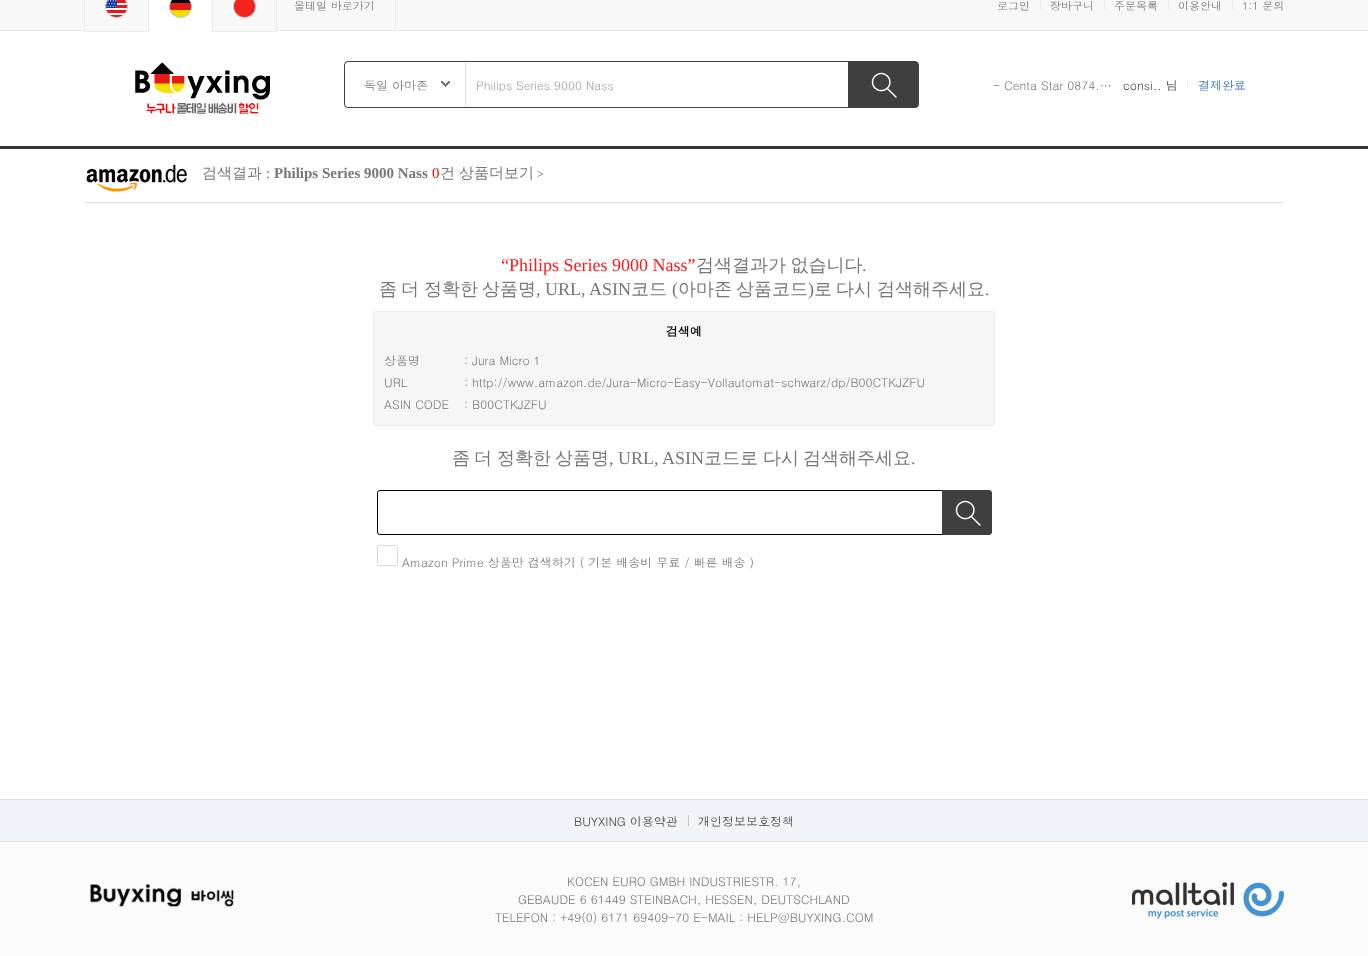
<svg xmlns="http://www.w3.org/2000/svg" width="1368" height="956">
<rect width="100%" height="100%" fill="#fff"/>
<rect width="1368" height="30" fill="#f8f8f8"/>
<rect y="30" width="1368" height="1" fill="#ebebeb"/>
<image x="84" y="0" width="193" height="32" href="media/1.png"/>
<rect x="395" width="1" height="30" fill="#ebebeb"/>
<text x="294" y="10" style="font-family:Dotum;font-size:11px;fill:#777">몰테일 바로가기</text>
<text x="997" y="10" style="font-family:Dotum;font-size:11px;fill:#777">로그인</text>
<rect x="1040" width="1" height="10" fill="#ebebeb"/>
<text x="1050" y="10" style="font-family:Dotum;font-size:11px;fill:#777">장바구니</text>
<rect x="1104" width="1" height="10" fill="#ebebeb"/>
<text x="1114" y="10" style="font-family:Dotum;font-size:11px;fill:#777">주문목록</text>
<rect x="1168" width="1" height="10" fill="#ebebeb"/>
<text x="1178" y="10" style="font-family:Dotum;font-size:11px;fill:#777">이용안내</text>
<rect x="1232" width="1" height="10" fill="#ebebeb"/>
<text x="1242" y="10" style="font-family:Dotum;font-size:11px;fill:#777">1:1 문의</text>
<rect y="146" width="1368" height="3" fill="#353535"/>
<image x="135" y="62" width="135" height="52" href="media/2.png"/>
<image x="344" y="61" width="122" height="47" href="media/3.png"/>
<text x="364" y="90" style="font-family:Dotum;font-size:12px;fill:#777">독일 아마존</text>
<image x="441" y="81" width="9" height="6" href="media/4.png"/>
<rect x="466" y="61" width="382" height="1" fill="#3f3f3f"/>
<rect x="466" y="107" width="382" height="1" fill="#3f3f3f"/>
<text x="476" y="90" style="font-family:Dotum;font-size:12px;fill:#a2a2a2">Philips Series 9000 Nass</text>
<image x="848" y="61" width="71" height="47" href="media/5.png"/>
<text x="993" y="90" style="font-family:Dotum;font-size:12px;fill:#777">- Centa Star 0874.…</text>
<rect x="1187" y="79" width="1" height="10" fill="#ebebeb"/>
<text x="1123" y="90" style="font-family:Dotum;font-size:12px;fill:#3f3f3f">consi.. 님</text>
<text x="1198" y="90" style="font-family:Dotum;font-size:12px;fill:#326dce">결제완료</text>
<rect x="84" y="202" width="1200" height="1" fill="#dfdfdf"/>
<image x="86" y="164" width="101" height="28" href="media/6.png"/>
<text x="202" y="178" style="font-family:WenQuanYi Zen Hei;font-size:15px;font-weight:500;fill:#777">검색결과</text>
<text x="266" y="178" style="font-family:Liberation Serif;font-size:15px;fill:#777">:</text>
<text x="274" y="178" style="font-family:Liberation Serif;font-size:15px;font-weight:bold;fill:#777">Philips Series 9000 Nass</text>
<text x="432" y="178" style="font-family:Liberation Serif;font-size:15px;fill:#f00">0</text>
<text x="440" y="178" style="font-family:WenQuanYi Zen Hei;font-size:15px;font-weight:500;fill:#777">건</text>
<text x="459" y="178" style="font-family:WenQuanYi Zen Hei;font-size:15px;font-weight:500;fill:#777">상품더보기</text>
<text x="537" y="178" style="font-family:Liberation Serif;font-size:12px;font-weight:bold;fill:#777">&gt;</text>
<text x="501" y="271" style="font-family:Liberation Serif;font-size:18px;fill:#fc1818">“Philips Series 9000 Nass”</text>
<text x="696" y="271" word-spacing="-1" style="font-family:WenQuanYi Zen Hei;font-size:18px;font-weight:500;fill:#777">검색결과가 없습니다</text>
<text x="862" y="271" style="font-family:Liberation Serif;font-size:18px;fill:#777">.</text>
<text x="379" y="295" style="font-family:WenQuanYi Zen Hei;font-size:18px;font-weight:500;fill:#777">좀</text>
<text x="401" y="295" style="font-family:WenQuanYi Zen Hei;font-size:18px;font-weight:500;fill:#777">더</text>
<text x="424" y="295" style="font-family:WenQuanYi Zen Hei;font-size:18px;font-weight:500;fill:#777">정확한</text>
<text x="482" y="295" style="font-family:WenQuanYi Zen Hei;font-size:18px;font-weight:500;fill:#777">상품명</text>
<text x="536" y="295" style="font-family:Liberation Serif;font-size:18px;fill:#777">, URL, ASIN</text>
<text x="631" y="295" style="font-family:WenQuanYi Zen Hei;font-size:18px;font-weight:500;fill:#777">코드</text>
<text x="672" y="295" style="font-family:Liberation Serif;font-size:18px;fill:#777">(</text>
<text x="678" y="295" style="font-family:WenQuanYi Zen Hei;font-size:18px;font-weight:500;fill:#777">아마존</text>
<text x="736" y="295" style="font-family:WenQuanYi Zen Hei;font-size:18px;font-weight:500;fill:#777">상품코드</text>
<text x="808" y="295" style="font-family:Liberation Serif;font-size:18px;fill:#777">)</text>
<text x="814" y="295" style="font-family:WenQuanYi Zen Hei;font-size:18px;font-weight:500;fill:#777">로</text>
<text x="836" y="295" style="font-family:WenQuanYi Zen Hei;font-size:18px;font-weight:500;fill:#777">다시</text>
<text x="877" y="295" style="font-family:WenQuanYi Zen Hei;font-size:18px;font-weight:500;fill:#777">검색해주세요</text>
<text x="985" y="295" style="font-family:Liberation Serif;font-size:18px;fill:#777">.</text>
<rect x="373.5" y="311.5" width="621" height="114" rx="2.5" fill="#f6f6f6" stroke="#ebeaea"/>
<text x="666" y="336" style="font-family:Dotum;font-size:12px;font-weight:bold;fill:#010101">검색예</text>
<text x="384" y="365" style="font-family:Dotum;font-size:12px;fill:#777">상품명</text>
<text x="464" y="365" style="font-family:Dotum;font-size:12px;fill:#777">: Jura Micro 1</text>
<text x="384" y="387" style="font-family:Dotum;font-size:12px;fill:#777">URL</text>
<text x="464" y="387" style="font-family:Dotum;font-size:12px;fill:#777">: http://www.amazon.de/Jura-Micro-Easy-Vollautomat-schwarz/dp/B00CTKJZFU</text>
<text x="384" y="409" style="font-family:Dotum;font-size:12px;fill:#777">ASIN CODE</text>
<text x="464" y="409" style="font-family:Dotum;font-size:12px;fill:#777">: B00CTKJZFU</text>
<text x="452" y="464" style="font-family:WenQuanYi Zen Hei;font-size:18px;font-weight:500;fill:#777">좀</text>
<text x="474" y="464" style="font-family:WenQuanYi Zen Hei;font-size:18px;font-weight:500;fill:#777">더</text>
<text x="497" y="464" style="font-family:WenQuanYi Zen Hei;font-size:18px;font-weight:500;fill:#777">정확한</text>
<text x="555" y="464" style="font-family:WenQuanYi Zen Hei;font-size:18px;font-weight:500;fill:#777">상품명</text>
<text x="609" y="464" style="font-family:Liberation Serif;font-size:18px;fill:#777">, URL, ASIN</text>
<text x="704" y="464" style="font-family:WenQuanYi Zen Hei;font-size:18px;font-weight:500;fill:#777">코드로</text>
<text x="763" y="464" style="font-family:WenQuanYi Zen Hei;font-size:18px;font-weight:500;fill:#777">다시</text>
<text x="803" y="464" style="font-family:WenQuanYi Zen Hei;font-size:18px;font-weight:500;fill:#777">검색해주세요</text>
<text x="911" y="464" style="font-family:Liberation Serif;font-size:18px;fill:#777">.</text>
<rect x="377.5" y="490.5" width="568" height="44" rx="2.5" fill="none" stroke="#000"/>
<image x="942" y="490" width="50" height="45" href="media/7.png"/>
<image x="377" y="545" width="21" height="21" href="media/8.png"/>
<text x="402" y="567" style="font-family:Dotum;font-size:12px;fill:#777">Amazon Prime 상품만 검색하기 ( 기본 배송비 무료 / 빠른 배송 )</text>
<rect y="800" width="1368" height="41" fill="#f2f5f7"/>
<rect y="799" width="1368" height="1" fill="#dee1e3"/>
<rect y="841" width="1368" height="1" fill="#dee1e3"/>
<text x="574" y="826" style="font-family:Dotum;font-size:12px;fill:#3f3f3f">BUYXING 이용약관</text>
<rect x="688" y="815" width="1" height="11" fill="#c4c6c7"/>
<text x="698" y="826" style="font-family:Dotum;font-size:12px;fill:#3f3f3f">개인정보보호정책</text>
<rect y="842" width="1368" height="114" fill="#fbfbfb"/>
<image x="90" y="884" width="144" height="23" href="media/9.png"/>
<text x="567" y="886" style="font-family:Dotum;font-size:12px;fill:#777">KOCEN EURO GMBH INDUSTRIESTR. 17,</text>
<text x="518" y="904" style="font-family:Dotum;font-size:12px;fill:#777">GEBAUDE 6 61449 STEINBACH, HESSEN, DEUTSCHLAND</text>
<text x="495" y="922" style="font-family:Dotum;font-size:12px;fill:#777">TELEFON : +49(0) 6171 69409-70 E-MAIL : HELP@BUYXING.COM</text>
<image x="1132" y="882" width="152" height="37" href="media/10.png"/>
</svg>
